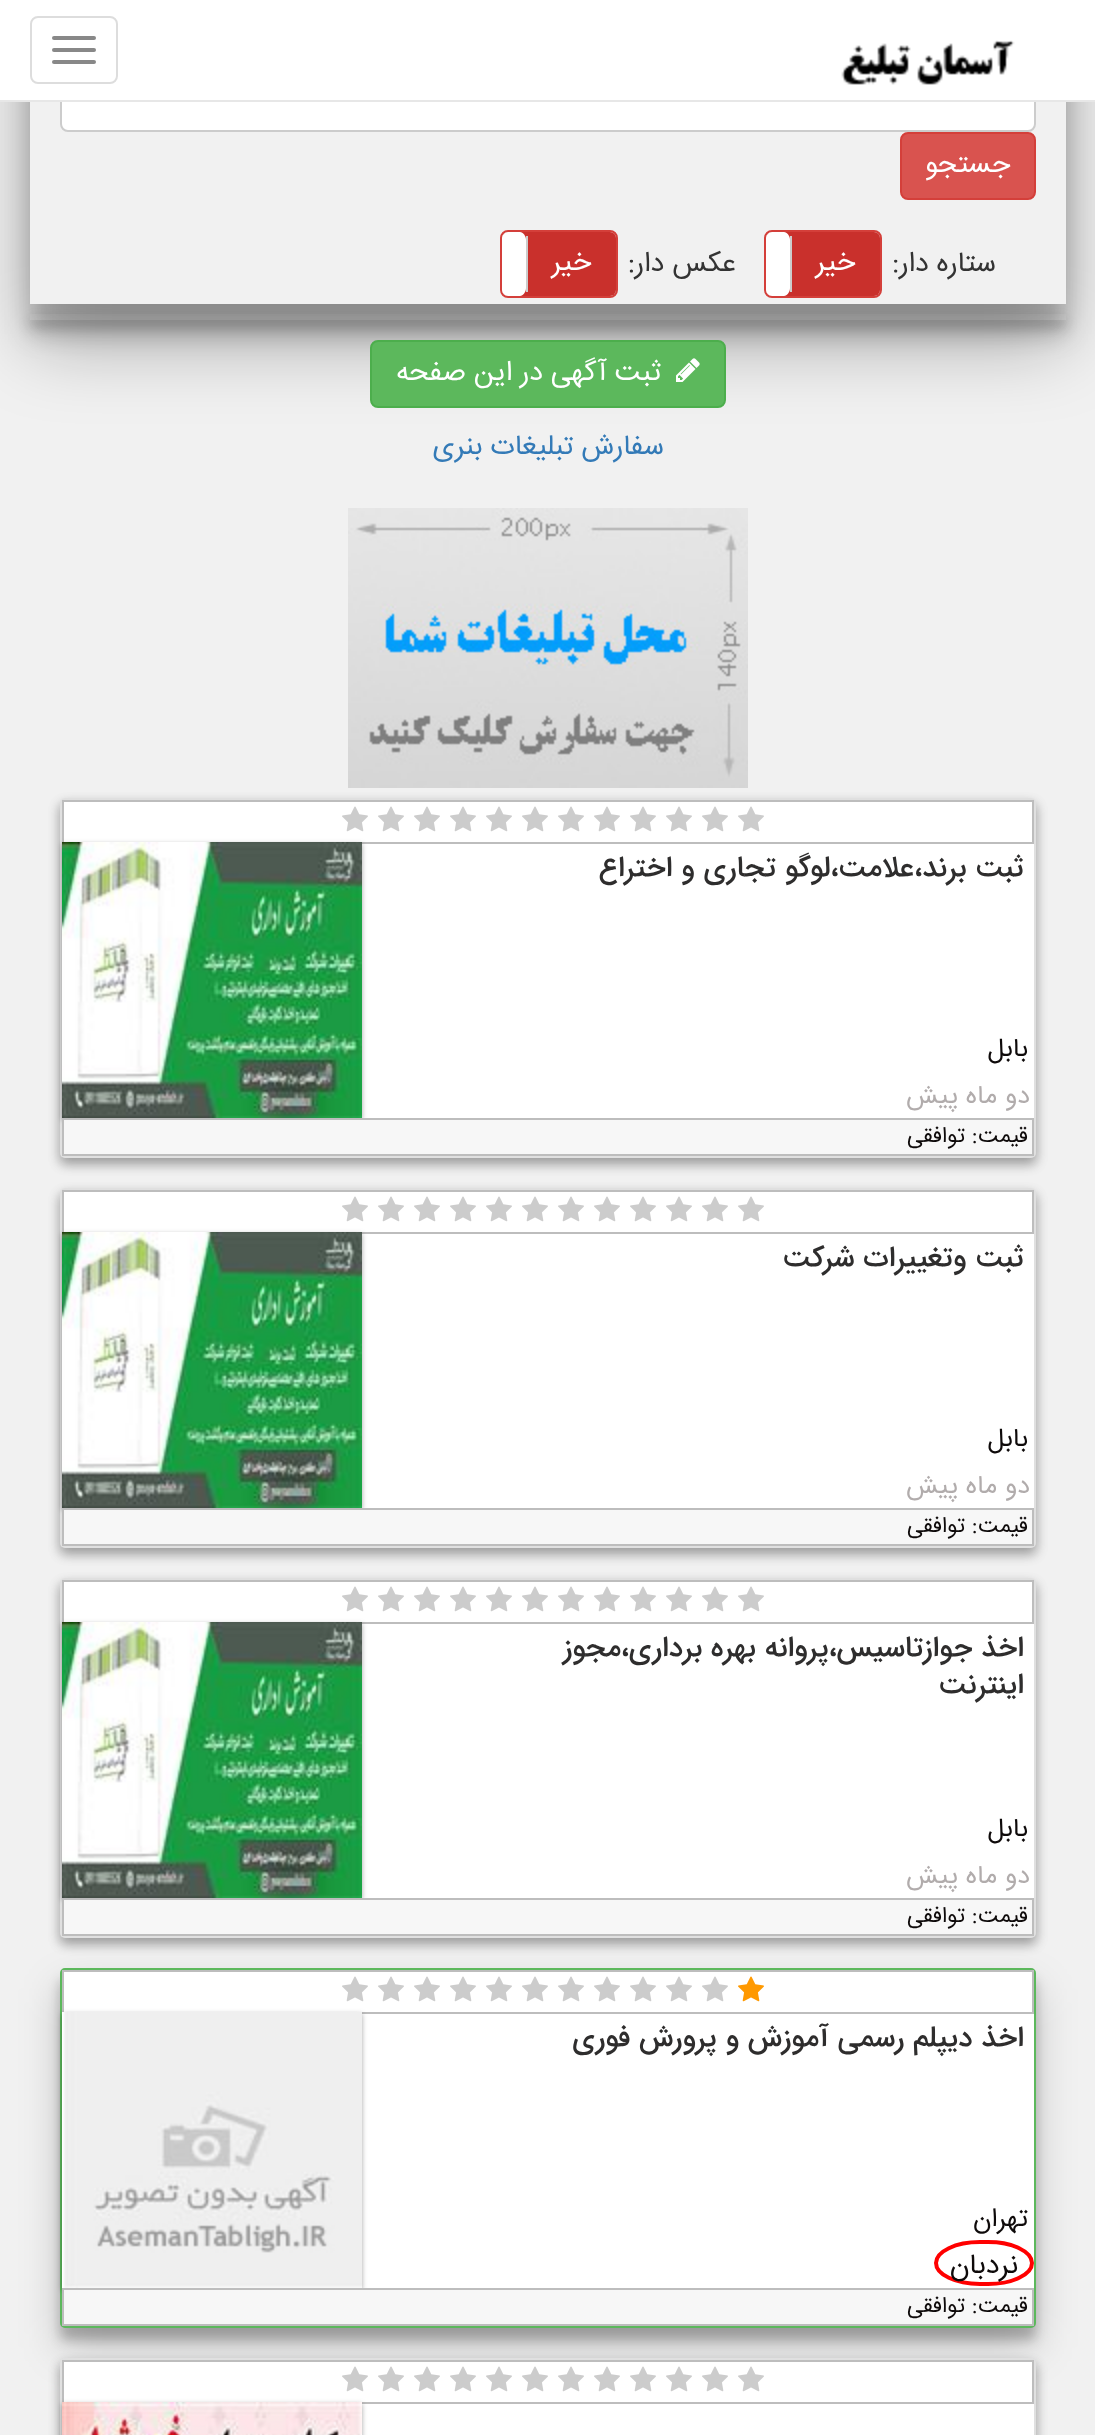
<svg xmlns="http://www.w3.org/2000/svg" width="1095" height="2435">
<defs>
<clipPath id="clip1"><path d="M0 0h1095v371h-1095zm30-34h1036v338h-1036z" clip-rule="evenodd"/></clipPath>
<clipPath id="clip2"><path d="M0 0h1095v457h-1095zm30-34h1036v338h-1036z" clip-rule="evenodd"/></clipPath>
<clipPath id="clip3"><path d="M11 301h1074v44h-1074zm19 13h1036v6h-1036z" clip-rule="evenodd"/></clipPath>
</defs>
<rect width="100%" height="100%" fill="#f1f1f1"/>
<g clip-path="url(#clip1)">
<rect x="30" y="-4" width="1036" height="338" fill="#00000038" filter="blur(12px)"/>
</g>
<g clip-path="url(#clip2)">
<rect x="30" y="4" width="1036" height="338" fill="#0000004d" filter="blur(38px)"/>
</g>
<rect x="61" y="65" width="974" height="66" rx="7" fill="#fff" stroke="#ccc" stroke-width="2"/>
<rect width="1095" height="100" fill="#fff"/>
<rect y="100" width="1095" height="2" fill="#e7e7e7"/>
<image x="841" y="40" width="174" height="45" href="media/1.png"/>
<rect x="31" y="17" width="86" height="66" rx="7" fill="none" stroke="#ddd" stroke-width="2"/>
<rect x="52" y="36" width="44" height="4" rx="2" fill="#888"/>
<rect x="52" y="48" width="44" height="4" rx="2" fill="#888"/>
<rect x="52" y="60" width="44" height="4" rx="2" fill="#888"/>
<rect x="901" y="133" width="134" height="66" rx="7" fill="#d9534f" stroke="#d43f3a" stroke-width="2"/>
<text x="1010" y="172" style="font-family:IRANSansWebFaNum;font-size:28px;direction:rtl;fill:#fff">جستجو</text>
<text x="996" y="271" style="font-family:IRANSansWebFaNum;font-size:28px;direction:rtl;fill:#333">ستاره دار:</text>
<rect x="765" y="231" width="116" height="66" rx="7" fill="none" stroke="#d43f3a" stroke-width="2"/>
<rect x="766" y="232" width="114" height="64" rx="6" fill="#c9302c"/>
<text x="855" y="270" style="font-family:IRANSansWebFaNum;font-size:28px;direction:rtl;fill:#fff">خیر</text>
<path d="M772 232c-3 0-6 3-6 6v52c0 3 3 6 6 6h12c3 0 6-4 6-8v-48c0-4-3-8-6-8z" fill="#fff"/>
<rect x="790" y="236" width="2" height="56" fill="#ccc"/>
<text x="736" y="271" style="font-family:IRANSansWebFaNum;font-size:28px;direction:rtl;fill:#333">عکس دار:</text>
<rect x="501" y="231" width="116" height="66" rx="7" fill="none" stroke="#d43f3a" stroke-width="2"/>
<rect x="502" y="232" width="114" height="64" rx="6" fill="#c9302c"/>
<text x="591" y="270" style="font-family:IRANSansWebFaNum;font-size:28px;direction:rtl;fill:#fff">خیر</text>
<path d="M508 232c-3 0-6 3-6 6v52c0 3 3 6 6 6h12c3 0 6-4 6-8v-48c0-4-3-8-6-8z" fill="#fff"/>
<rect x="526" y="236" width="2" height="56" fill="#ccc"/>
<g clip-path="url(#clip3)">
<rect x="30" y="320" width="1036" height="6" fill="#0000003b" filter="blur(6px)"/>
</g>
<rect x="371" y="341" width="354" height="66" rx="7" fill="#5cb85c" stroke="#4cae4c" stroke-width="2"/>
<image x="676" y="358" width="24" height="24" href="media/2.png"/>
<text x="661" y="380" style="font-family:IRANSansWebFaNum;font-size:28px;direction:rtl;fill:#fff">ثبت آگهی در این صفحه</text>
<text x="664" y="454" style="font-family:IRANSansWebFaNum;font-size:28px;direction:rtl;fill:#337ab7">سفارش تبلیغات بنری</text>
<image x="348" y="508" width="400" height="280" href="media/3.png"/>
<rect x="60" y="804" width="976" height="360" rx="5" fill="#0000003b" filter="blur(6px)"/>
<rect x="60" y="804" width="976" height="360" rx="5" fill="#00000029" filter="blur(6px)"/>
<rect x="60" y="798" width="976" height="360" rx="5" fill="#fff"/>
<rect x="61" y="799" width="974" height="358" rx="4" fill="none" stroke="#0000001f" stroke-width="2"/>
<rect x="63" y="801" width="970" height="42" fill="none" stroke="#bdbdbd" stroke-width="2"/>
<image x="738" y="806" width="26" height="26" href="media/4.png"/>
<image x="702" y="806" width="26" height="26" href="media/4.png"/>
<image x="666" y="806" width="26" height="26" href="media/4.png"/>
<image x="630" y="806" width="26" height="26" href="media/4.png"/>
<image x="594" y="806" width="26" height="26" href="media/4.png"/>
<image x="558" y="806" width="26" height="26" href="media/4.png"/>
<image x="522" y="806" width="26" height="26" href="media/4.png"/>
<image x="486" y="806" width="26" height="26" href="media/4.png"/>
<image x="450" y="806" width="26" height="26" href="media/4.png"/>
<image x="414" y="806" width="26" height="26" href="media/4.png"/>
<image x="378" y="806" width="26" height="26" href="media/4.png"/>
<image x="342" y="806" width="26" height="26" href="media/4.png"/>
<text x="1024" y="876" style="font-family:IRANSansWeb;font-size:29px;font-weight:500;direction:rtl;fill:#2e2d2d">ثبت برند،علامت،لوگو تجاری و اختراع</text>
<rect x="62" y="844" width="300" height="276" fill="#0000001f" filter="blur(3px)"/>
<rect x="62" y="844" width="300" height="276" fill="#0000003d" filter="blur(2px)"/>
<image x="62" y="842" width="300" height="276" href="media/5.png"/>
<text x="1028" y="1056" style="font-family:IRANSansWeb;font-size:26px;direction:rtl;fill:#0e0a0a">بابل</text>
<text x="1030" y="1103" style="font-family:IRANSansWeb;font-size:26px;direction:rtl;fill:#b1acac">دو ماه پیش</text>
<rect x="63" y="1119" width="970" height="36" fill="#f7f7f7" stroke="#bdbdbd" stroke-width="2"/>
<text x="1028" y="1142" style="font-family:IRANSansWeb;font-size:22px;direction:rtl;fill:#0e0a0a">قیمت: توافقی</text>
<rect x="60" y="1194" width="976" height="360" rx="5" fill="#0000003b" filter="blur(6px)"/>
<rect x="60" y="1194" width="976" height="360" rx="5" fill="#00000029" filter="blur(6px)"/>
<rect x="60" y="1188" width="976" height="360" rx="5" fill="#fff"/>
<rect x="61" y="1189" width="974" height="358" rx="4" fill="none" stroke="#0000001f" stroke-width="2"/>
<rect x="63" y="1191" width="970" height="42" fill="none" stroke="#bdbdbd" stroke-width="2"/>
<image x="738" y="1196" width="26" height="26" href="media/4.png"/>
<image x="702" y="1196" width="26" height="26" href="media/4.png"/>
<image x="666" y="1196" width="26" height="26" href="media/4.png"/>
<image x="630" y="1196" width="26" height="26" href="media/4.png"/>
<image x="594" y="1196" width="26" height="26" href="media/4.png"/>
<image x="558" y="1196" width="26" height="26" href="media/4.png"/>
<image x="522" y="1196" width="26" height="26" href="media/4.png"/>
<image x="486" y="1196" width="26" height="26" href="media/4.png"/>
<image x="450" y="1196" width="26" height="26" href="media/4.png"/>
<image x="414" y="1196" width="26" height="26" href="media/4.png"/>
<image x="378" y="1196" width="26" height="26" href="media/4.png"/>
<image x="342" y="1196" width="26" height="26" href="media/4.png"/>
<text x="1024" y="1266" style="font-family:IRANSansWeb;font-size:29px;font-weight:500;direction:rtl;fill:#2e2d2d">ثبت وتغییرات شرکت</text>
<rect x="62" y="1234" width="300" height="276" fill="#0000001f" filter="blur(3px)"/>
<rect x="62" y="1234" width="300" height="276" fill="#0000003d" filter="blur(2px)"/>
<image x="62" y="1232" width="300" height="276" href="media/5.png"/>
<text x="1028" y="1446" style="font-family:IRANSansWeb;font-size:26px;direction:rtl;fill:#0e0a0a">بابل</text>
<text x="1030" y="1493" style="font-family:IRANSansWeb;font-size:26px;direction:rtl;fill:#b1acac">دو ماه پیش</text>
<rect x="63" y="1509" width="970" height="36" fill="#f7f7f7" stroke="#bdbdbd" stroke-width="2"/>
<text x="1028" y="1532" style="font-family:IRANSansWeb;font-size:22px;direction:rtl;fill:#0e0a0a">قیمت: توافقی</text>
<rect x="60" y="1584" width="976" height="360" rx="5" fill="#0000003b" filter="blur(6px)"/>
<rect x="60" y="1584" width="976" height="360" rx="5" fill="#00000029" filter="blur(6px)"/>
<rect x="60" y="1578" width="976" height="360" rx="5" fill="#fff"/>
<rect x="61" y="1579" width="974" height="358" rx="4" fill="none" stroke="#0000001f" stroke-width="2"/>
<rect x="63" y="1581" width="970" height="42" fill="none" stroke="#bdbdbd" stroke-width="2"/>
<image x="738" y="1586" width="26" height="26" href="media/4.png"/>
<image x="702" y="1586" width="26" height="26" href="media/4.png"/>
<image x="666" y="1586" width="26" height="26" href="media/4.png"/>
<image x="630" y="1586" width="26" height="26" href="media/4.png"/>
<image x="594" y="1586" width="26" height="26" href="media/4.png"/>
<image x="558" y="1586" width="26" height="26" href="media/4.png"/>
<image x="522" y="1586" width="26" height="26" href="media/4.png"/>
<image x="486" y="1586" width="26" height="26" href="media/4.png"/>
<image x="450" y="1586" width="26" height="26" href="media/4.png"/>
<image x="414" y="1586" width="26" height="26" href="media/4.png"/>
<image x="378" y="1586" width="26" height="26" href="media/4.png"/>
<image x="342" y="1586" width="26" height="26" href="media/4.png"/>
<text x="1024" y="1656" style="font-family:IRANSansWeb;font-size:29px;font-weight:500;direction:rtl;fill:#2e2d2d">اخذ جوازتاسیس،پروانه بهره برداری،مجوز</text>
<text x="1024" y="1693" style="font-family:IRANSansWeb;font-size:29px;font-weight:500;direction:rtl;fill:#2e2d2d">اینترنت</text>
<rect x="62" y="1624" width="300" height="276" fill="#0000001f" filter="blur(3px)"/>
<rect x="62" y="1624" width="300" height="276" fill="#0000003d" filter="blur(2px)"/>
<image x="62" y="1622" width="300" height="276" href="media/5.png"/>
<text x="1028" y="1836" style="font-family:IRANSansWeb;font-size:26px;direction:rtl;fill:#0e0a0a">بابل</text>
<text x="1030" y="1883" style="font-family:IRANSansWeb;font-size:26px;direction:rtl;fill:#b1acac">دو ماه پیش</text>
<rect x="63" y="1899" width="970" height="36" fill="#f7f7f7" stroke="#bdbdbd" stroke-width="2"/>
<text x="1028" y="1922" style="font-family:IRANSansWeb;font-size:22px;direction:rtl;fill:#0e0a0a">قیمت: توافقی</text>
<rect x="60" y="1980" width="976" height="360" rx="5" fill="#0000003b" filter="blur(6px)"/>
<rect x="60" y="1988" width="976" height="360" rx="5" fill="#00000030" filter="blur(20px)"/>
<rect x="61" y="1969" width="974" height="358" rx="4" fill="#fff" stroke="#5cb85c" stroke-width="2"/>
<rect x="63" y="1971" width="970" height="42" fill="none" stroke="#bdbdbd" stroke-width="2"/>
<image x="738" y="1976" width="26" height="26" href="media/6.png"/>
<image x="702" y="1976" width="26" height="26" href="media/4.png"/>
<image x="666" y="1976" width="26" height="26" href="media/4.png"/>
<image x="630" y="1976" width="26" height="26" href="media/4.png"/>
<image x="594" y="1976" width="26" height="26" href="media/4.png"/>
<image x="558" y="1976" width="26" height="26" href="media/4.png"/>
<image x="522" y="1976" width="26" height="26" href="media/4.png"/>
<image x="486" y="1976" width="26" height="26" href="media/4.png"/>
<image x="450" y="1976" width="26" height="26" href="media/4.png"/>
<image x="414" y="1976" width="26" height="26" href="media/4.png"/>
<image x="378" y="1976" width="26" height="26" href="media/4.png"/>
<image x="342" y="1976" width="26" height="26" href="media/4.png"/>
<text x="1024" y="2046" style="font-family:IRANSansWeb;font-size:29px;font-weight:500;direction:rtl;fill:#2e2d2d">اخذ دیپلم رسمی آموزش و پرورش فوری</text>
<rect x="62" y="2014" width="300" height="276" fill="#0000001f" filter="blur(3px)"/>
<rect x="62" y="2014" width="300" height="276" fill="#0000003d" filter="blur(2px)"/>
<image x="62" y="2012" width="300" height="276" href="media/7.png"/>
<text x="1028" y="2226" style="font-family:IRANSansWeb;font-size:26px;direction:rtl;fill:#0e0a0a">تهران</text>
<path d="M980 2242h8c24.5 0 44 9.5 44 21c0 11.5-19.5 21-44 21h-8c-24.5 0-44-9.5-44-21c0-11.5 19.5-21 44-21z" fill="none" stroke="#f00" stroke-width="4"/>
<text x="1018" y="2273" style="font-family:IRANSansWebFaNum;font-size:28px;direction:rtl;fill:#0e0a0a">نردبان</text>
<rect x="63" y="2289" width="970" height="36" fill="#f7f7f7" stroke="#bdbdbd" stroke-width="2"/>
<text x="1028" y="2312" style="font-family:IRANSansWeb;font-size:22px;direction:rtl;fill:#0e0a0a">قیمت: توافقی</text>
<rect x="60" y="2364" width="976" height="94" rx="5" fill="#0000003b" filter="blur(6px)"/>
<rect x="60" y="2364" width="976" height="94" rx="5" fill="#00000029" filter="blur(6px)"/>
<rect x="60" y="2358" width="976" height="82" rx="5" fill="#fff"/>
<rect x="61" y="2359" width="974" height="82" rx="4" fill="none" stroke="#0000001f" stroke-width="2"/>
<rect x="63" y="2361" width="970" height="42" fill="none" stroke="#bdbdbd" stroke-width="2"/>
<image x="738" y="2366" width="26" height="26" href="media/4.png"/>
<image x="702" y="2366" width="26" height="26" href="media/4.png"/>
<image x="666" y="2366" width="26" height="26" href="media/4.png"/>
<image x="630" y="2366" width="26" height="26" href="media/4.png"/>
<image x="594" y="2366" width="26" height="26" href="media/4.png"/>
<image x="558" y="2366" width="26" height="26" href="media/4.png"/>
<image x="522" y="2366" width="26" height="26" href="media/4.png"/>
<image x="486" y="2366" width="26" height="26" href="media/4.png"/>
<image x="450" y="2366" width="26" height="26" href="media/4.png"/>
<image x="414" y="2366" width="26" height="26" href="media/4.png"/>
<image x="378" y="2366" width="26" height="26" href="media/4.png"/>
<image x="342" y="2366" width="26" height="26" href="media/4.png"/>
<rect x="62" y="2404" width="300" height="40" fill="#0000001f" filter="blur(3px)"/>
<rect x="62" y="2404" width="300" height="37" fill="#0000003d" filter="blur(2px)"/>
<image x="62" y="2402" width="300" height="33" href="media/8.png"/>
</svg>
